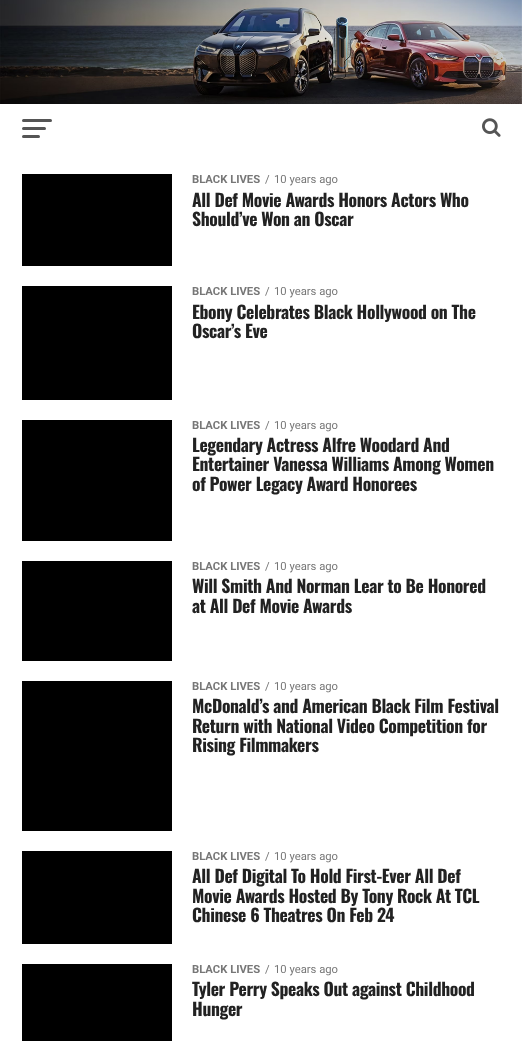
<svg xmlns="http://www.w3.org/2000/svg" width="522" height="1041">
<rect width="100%" height="100%" fill="#fff"/>
<image x="0" y="0" width="522" height="104" href="media/1.png"/>
<rect x="22" y="119" width="30" height="3" rx="1.5" fill="#555"/>
<rect x="22" y="127" width="24" height="3" rx="1.5" fill="#555"/>
<rect x="22" y="135" width="18" height="3" rx="1.5" fill="#555"/>
<image x="482" y="118" width="19" height="19" href="media/2.png"/>
<rect x="22" y="174" width="150" height="92" fill="#000"/>
<text x="192" y="183" style="font-family:Roboto;font-size:11.25px;font-weight:bold;fill:#777">BLACK LIVES</text>
<text x="265" y="183" style="font-family:Roboto;font-size:11.25px;fill:#777">/</text>
<text x="274" y="183" style="font-family:Roboto;font-size:11.25px;fill:#777">10 years ago</text>
<text x="192" y="207" style="font-family:Oswald;font-size:17.6px;font-weight:bold;letter-spacing:-0.35px;fill:#222">All Def Movie Awards Honors Actors Who</text>
<text x="192" y="226" style="font-family:Oswald;font-size:17.6px;font-weight:bold;letter-spacing:-0.35px;fill:#222">Should’ve Won an Oscar</text>
<rect x="22" y="286" width="150" height="114" fill="#000"/>
<text x="192" y="295" style="font-family:Roboto;font-size:11.25px;font-weight:bold;fill:#777">BLACK LIVES</text>
<text x="265" y="295" style="font-family:Roboto;font-size:11.25px;fill:#777">/</text>
<text x="274" y="295" style="font-family:Roboto;font-size:11.25px;fill:#777">10 years ago</text>
<text x="192" y="319" style="font-family:Oswald;font-size:17.6px;font-weight:bold;letter-spacing:-0.35px;fill:#222">Ebony Celebrates Black Hollywood on The</text>
<text x="192" y="338" style="font-family:Oswald;font-size:17.6px;font-weight:bold;letter-spacing:-0.35px;fill:#222">Oscar’s Eve</text>
<rect x="22" y="420" width="150" height="121" fill="#000"/>
<text x="192" y="429" style="font-family:Roboto;font-size:11.25px;font-weight:bold;fill:#777">BLACK LIVES</text>
<text x="265" y="429" style="font-family:Roboto;font-size:11.25px;fill:#777">/</text>
<text x="274" y="429" style="font-family:Roboto;font-size:11.25px;fill:#777">10 years ago</text>
<text x="192" y="452" style="font-family:Oswald;font-size:17.6px;font-weight:bold;letter-spacing:-0.35px;fill:#222">Legendary Actress Alfre Woodard And</text>
<text x="192" y="471" style="font-family:Oswald;font-size:17.6px;font-weight:bold;letter-spacing:-0.35px;fill:#222">Entertainer Vanessa Williams Among Women</text>
<text x="192" y="491" style="font-family:Oswald;font-size:17.6px;font-weight:bold;letter-spacing:-0.35px;fill:#222">of Power Legacy Award Honorees</text>
<rect x="22" y="561" width="150" height="100" fill="#000"/>
<text x="192" y="570" style="font-family:Roboto;font-size:11.25px;font-weight:bold;fill:#777">BLACK LIVES</text>
<text x="265" y="570" style="font-family:Roboto;font-size:11.25px;fill:#777">/</text>
<text x="274" y="570" style="font-family:Roboto;font-size:11.25px;fill:#777">10 years ago</text>
<text x="192" y="593" style="font-family:Oswald;font-size:17.6px;font-weight:bold;letter-spacing:-0.35px;fill:#222">Will Smith And Norman Lear to Be Honored</text>
<text x="192" y="613" style="font-family:Oswald;font-size:17.6px;font-weight:bold;letter-spacing:-0.35px;fill:#222">at All Def Movie Awards</text>
<rect x="22" y="681" width="150" height="150" fill="#000"/>
<text x="192" y="690" style="font-family:Roboto;font-size:11.25px;font-weight:bold;fill:#777">BLACK LIVES</text>
<text x="265" y="690" style="font-family:Roboto;font-size:11.25px;fill:#777">/</text>
<text x="274" y="690" style="font-family:Roboto;font-size:11.25px;fill:#777">10 years ago</text>
<text x="192" y="713" style="font-family:Oswald;font-size:17.6px;font-weight:bold;letter-spacing:-0.35px;fill:#222">McDonald’s and American Black Film Festival</text>
<text x="192" y="733" style="font-family:Oswald;font-size:17.6px;font-weight:bold;letter-spacing:-0.35px;fill:#222">Return with National Video Competition for</text>
<text x="192" y="752" style="font-family:Oswald;font-size:17.6px;font-weight:bold;letter-spacing:-0.35px;fill:#222">Rising Filmmakers</text>
<rect x="22" y="851" width="150" height="93" fill="#000"/>
<text x="192" y="860" style="font-family:Roboto;font-size:11.25px;font-weight:bold;fill:#777">BLACK LIVES</text>
<text x="265" y="860" style="font-family:Roboto;font-size:11.25px;fill:#777">/</text>
<text x="274" y="860" style="font-family:Roboto;font-size:11.25px;fill:#777">10 years ago</text>
<text x="192" y="883" style="font-family:Oswald;font-size:17.6px;font-weight:bold;letter-spacing:-0.35px;fill:#222">All Def Digital To Hold First-Ever All Def</text>
<text x="192" y="903" style="font-family:Oswald;font-size:17.6px;font-weight:bold;letter-spacing:-0.35px;fill:#222">Movie Awards Hosted By Tony Rock At TCL</text>
<text x="192" y="922" style="font-family:Oswald;font-size:17.6px;font-weight:bold;letter-spacing:-0.35px;fill:#222">Chinese 6 Theatres On Feb 24</text>
<rect x="22" y="964" width="150" height="77" fill="#000"/>
<text x="192" y="973" style="font-family:Roboto;font-size:11.25px;font-weight:bold;fill:#777">BLACK LIVES</text>
<text x="265" y="973" style="font-family:Roboto;font-size:11.25px;fill:#777">/</text>
<text x="274" y="973" style="font-family:Roboto;font-size:11.25px;fill:#777">10 years ago</text>
<text x="192" y="996" style="font-family:Oswald;font-size:17.6px;font-weight:bold;letter-spacing:-0.35px;fill:#222">Tyler Perry Speaks Out against Childhood</text>
<text x="192" y="1016" style="font-family:Oswald;font-size:17.6px;font-weight:bold;letter-spacing:-0.35px;fill:#222">Hunger</text>
</svg>
